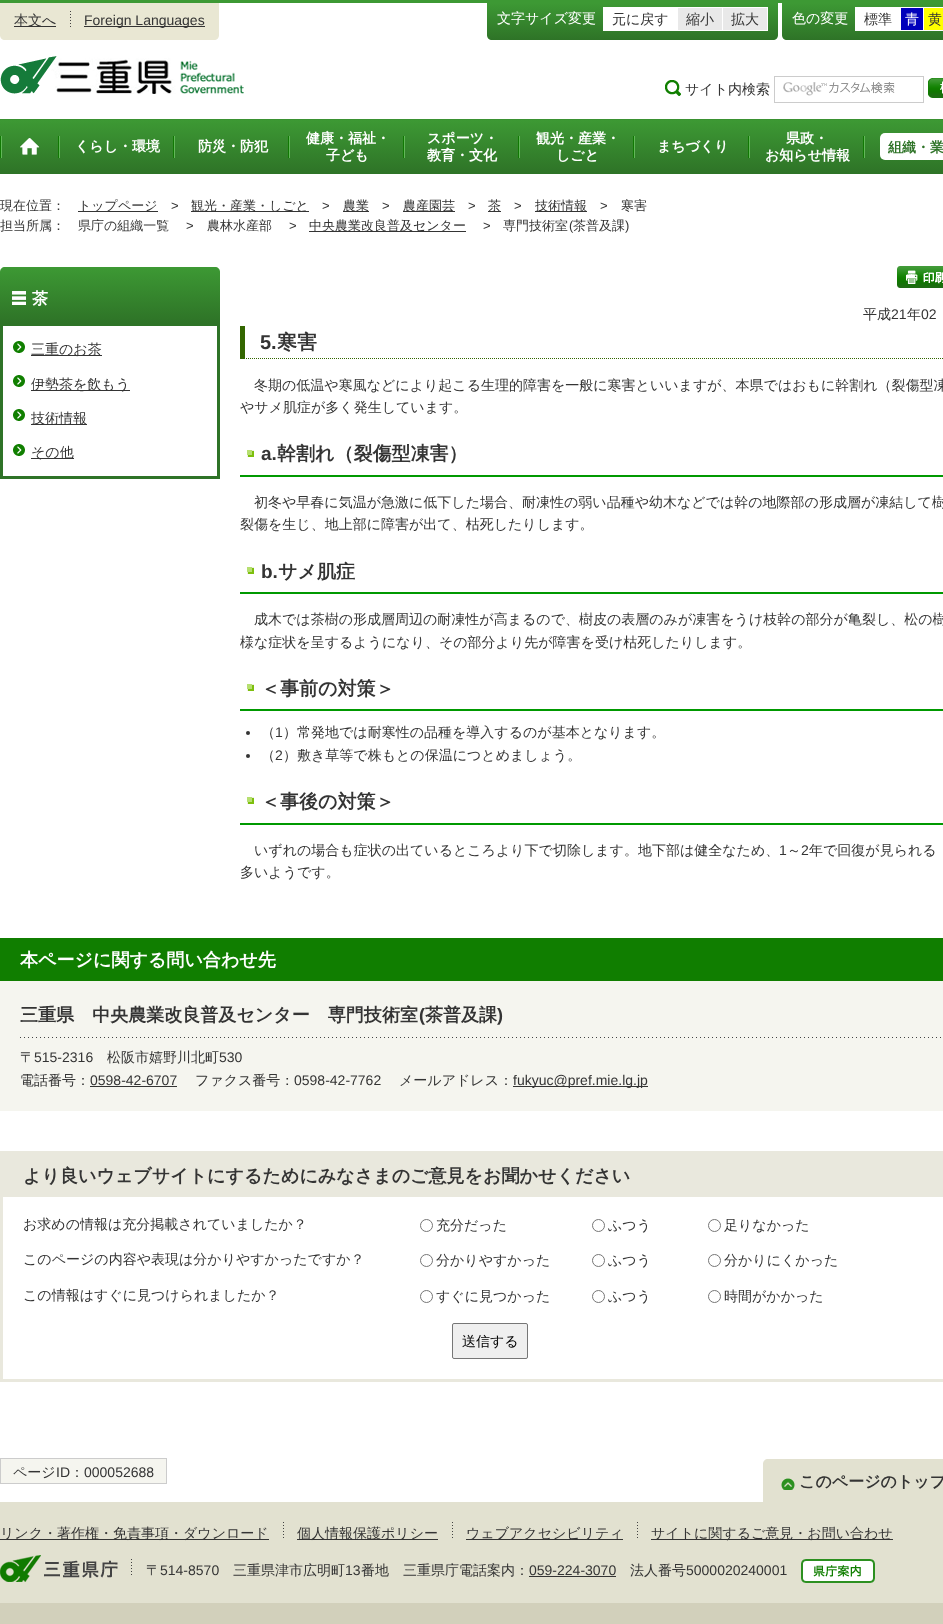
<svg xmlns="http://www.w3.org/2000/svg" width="943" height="1624">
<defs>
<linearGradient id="g1" gradientUnits="userSpaceOnUse" x1="633" y1="3" x2="633" y2="40"><stop offset="0" stop-color="#3d9934"/><stop offset="1" stop-color="#2e7327"/></linearGradient>
<linearGradient id="g2" gradientUnits="userSpaceOnUse" x1="881" y1="3" x2="881" y2="40"><stop offset="0" stop-color="#3d9934"/><stop offset="1" stop-color="#2e7327"/></linearGradient>
<linearGradient id="g3" gradientUnits="userSpaceOnUse" x1="490" y1="120" x2="490" y2="174"><stop offset="0" stop-color="#3d9934"/><stop offset="1" stop-color="#2e7327"/></linearGradient>
<linearGradient id="g4" gradientUnits="userSpaceOnUse" x1="110" y1="267" x2="110" y2="323"><stop offset="0" stop-color="#3d9934"/><stop offset="1" stop-color="#2e7327"/></linearGradient>
</defs>
<rect width="100%" height="100%" fill="#fff"/>
<rect width="943" height="3" fill="#3d9934"/>
<path d="M0 3h219v32c0 3-2 5-5 5h-209c-3 0-5-2-5-5z" fill="#e9e7d3"/>
<rect x="14" y="26" width="42" height="1" fill="#343434"/>
<text x="14" y="25" style="font-family:WenQuanYi Zen Hei;font-size:14px;font-weight:500;fill:#343434">本文へ</text>
<image x="70" y="11" width="1" height="16" href="media/1.png"/>
<rect x="84" y="26" width="121" height="1" fill="#343434"/>
<text x="84" y="25" style="font-family:Liberation Sans;font-size:14px;fill:#343434">Foreign Languages</text>
<path d="M487 3h291v32c0 3-2 5-5 5h-281c-3 0-5-2-5-5z" fill="url(#g1)"/>
<text x="497" y="23" style="font-family:WenQuanYi Zen Hei;font-size:14px;font-weight:500;fill:#fff">文字サイズ変更</text>
<rect x="603" y="7" width="165" height="24" fill="#fff"/>
<text x="612" y="24" style="font-family:WenQuanYi Zen Hei;font-size:14px;font-weight:500;fill:#343434">元に戻す</text>
<rect x="678" y="8" width="44" height="22" fill="#e9e9e9"/>
<text x="686" y="24" style="font-family:WenQuanYi Zen Hei;font-size:14px;font-weight:500;fill:#343434">縮小</text>
<rect x="723" y="8" width="44" height="22" fill="#e9e9e9"/>
<text x="731" y="24" style="font-family:WenQuanYi Zen Hei;font-size:14px;font-weight:500;fill:#343434">拡大</text>
<path d="M782 3h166v32c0 3-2 5-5 5h-156c-3 0-5-2-5-5z" fill="url(#g2)"/>
<text x="792" y="23" style="font-family:WenQuanYi Zen Hei;font-size:14px;font-weight:500;fill:#fff">色の変更</text>
<rect x="855" y="7" width="88" height="24" fill="#fff"/>
<text x="864" y="24" style="font-family:WenQuanYi Zen Hei;font-size:14px;font-weight:500;fill:#343434">標準</text>
<rect x="901" y="8" width="22" height="22" fill="#00b"/>
<text x="905" y="24" style="font-family:WenQuanYi Zen Hei;font-size:14px;font-weight:500;fill:#fff">青</text>
<rect x="924" y="8" width="19" height="22" fill="#ff0"/>
<text x="928" y="24" style="font-family:WenQuanYi Zen Hei;font-size:14px;font-weight:500;fill:#343434">黄</text>
<image x="0" y="56" width="244" height="38" href="media/2.png"/>
<image x="665" y="80" width="16" height="16" href="media/3.png"/>
<text x="685" y="94" style="font-family:WenQuanYi Zen Hei;font-size:14px;font-weight:500;fill:#343434">サイト内検索</text>
<image x="783" y="82" width="112" height="14" href="media/4.png"/>
<rect x="774.5" y="76.5" width="149" height="26" fill="none" stroke="#ccc"/>
<image x="928" y="78" width="15" height="20" href="media/5.png"/>
<rect y="120" width="943" height="54" fill="url(#g3)"/>
<rect y="119" width="943" height="1" fill="#3a9131"/>
<image x="58" y="136" width="2" height="22" href="media/6.png"/>
<image x="0" y="136" width="2" height="22" href="media/6.png"/>
<image x="20" y="138" width="20" height="17" href="media/7.png"/>
<image x="173" y="136" width="2" height="22" href="media/6.png"/>
<text x="75" y="151" style="font-family:WenQuanYi Zen Hei;font-size:14px;font-weight:bold;fill:#fff">くらし・環境</text>
<image x="288" y="136" width="2" height="22" href="media/6.png"/>
<text x="198" y="151" style="font-family:WenQuanYi Zen Hei;font-size:14px;font-weight:bold;fill:#fff">防災・防犯</text>
<image x="403" y="136" width="2" height="22" href="media/6.png"/>
<text x="306" y="143" style="font-family:WenQuanYi Zen Hei;font-size:14px;font-weight:bold;fill:#fff">健康・福祉・</text>
<text x="326" y="160" style="font-family:WenQuanYi Zen Hei;font-size:14px;font-weight:bold;fill:#fff">子ども</text>
<image x="518" y="136" width="2" height="22" href="media/6.png"/>
<text x="427" y="143" style="font-family:WenQuanYi Zen Hei;font-size:14px;font-weight:bold;fill:#fff">スポーツ・</text>
<text x="427" y="160" style="font-family:WenQuanYi Zen Hei;font-size:14px;font-weight:bold;fill:#fff">教育・文化</text>
<image x="633" y="136" width="2" height="22" href="media/6.png"/>
<text x="536" y="143" style="font-family:WenQuanYi Zen Hei;font-size:14px;font-weight:bold;fill:#fff">観光・産業・</text>
<text x="556" y="160" style="font-family:WenQuanYi Zen Hei;font-size:14px;font-weight:bold;fill:#fff">しごと</text>
<image x="748" y="136" width="2" height="22" href="media/6.png"/>
<text x="657" y="151" style="font-family:WenQuanYi Zen Hei;font-size:14px;font-weight:bold;fill:#fff">まちづくり</text>
<image x="863" y="136" width="2" height="22" href="media/6.png"/>
<text x="786" y="143" style="font-family:WenQuanYi Zen Hei;font-size:14px;font-weight:bold;fill:#fff">県政・</text>
<text x="765" y="160" style="font-family:WenQuanYi Zen Hei;font-size:14px;font-weight:bold;fill:#fff">お知らせ情報</text>
<rect x="880" y="133" width="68" height="27" rx="5" fill="#fff"/>
<text x="888" y="152" style="font-family:WenQuanYi Zen Hei;font-size:14px;font-weight:bold;fill:#2e7327">組織・業</text>
<text x="0" y="210" style="font-family:WenQuanYi Zen Hei;font-size:13px;font-weight:500;fill:#343434">現在位置：</text>
<rect x="78" y="211" width="80" height="1" fill="#343434"/>
<text x="78" y="210" style="font-family:WenQuanYi Zen Hei;font-size:13px;font-weight:500;fill:#343434">トップページ</text>
<text x="171" y="210" style="font-family:Liberation Sans;font-size:13px;fill:#343434">&gt;</text>
<rect x="191" y="211" width="118" height="1" fill="#343434"/>
<text x="191" y="210" style="font-family:WenQuanYi Zen Hei;font-size:13px;font-weight:500;fill:#343434">観光・産業・しごと</text>
<text x="322" y="210" style="font-family:Liberation Sans;font-size:13px;fill:#343434">&gt;</text>
<rect x="343" y="211" width="26" height="1" fill="#343434"/>
<text x="343" y="210" style="font-family:WenQuanYi Zen Hei;font-size:13px;font-weight:500;fill:#343434">農業</text>
<text x="382" y="210" style="font-family:Liberation Sans;font-size:13px;fill:#343434">&gt;</text>
<rect x="403" y="211" width="52" height="1" fill="#343434"/>
<text x="403" y="210" style="font-family:WenQuanYi Zen Hei;font-size:13px;font-weight:500;fill:#343434">農産園芸</text>
<text x="468" y="210" style="font-family:Liberation Sans;font-size:13px;fill:#343434">&gt;</text>
<rect x="488" y="211" width="13" height="1" fill="#343434"/>
<text x="488" y="210" style="font-family:WenQuanYi Zen Hei;font-size:13px;font-weight:500;fill:#343434">茶</text>
<text x="514" y="210" style="font-family:Liberation Sans;font-size:13px;fill:#343434">&gt;</text>
<rect x="535" y="211" width="52" height="1" fill="#343434"/>
<text x="535" y="210" style="font-family:WenQuanYi Zen Hei;font-size:13px;font-weight:500;fill:#343434">技術情報</text>
<text x="600" y="210" style="font-family:Liberation Sans;font-size:13px;fill:#343434">&gt;</text>
<text x="621" y="210" style="font-family:WenQuanYi Zen Hei;font-size:13px;font-weight:500;fill:#343434">寒害</text>
<text x="0" y="230" style="font-family:WenQuanYi Zen Hei;font-size:13px;font-weight:500;fill:#343434">担当所属：</text>
<text x="78" y="230" style="font-family:WenQuanYi Zen Hei;font-size:13px;font-weight:500;fill:#343434">県庁の組織一覧</text>
<text x="186" y="230" style="font-family:Liberation Sans;font-size:13px;fill:#343434">&gt;</text>
<text x="207" y="230" style="font-family:WenQuanYi Zen Hei;font-size:13px;font-weight:500;fill:#343434">農林水産部</text>
<text x="289" y="230" style="font-family:Liberation Sans;font-size:13px;fill:#343434">&gt;</text>
<rect x="309" y="231" width="157" height="1" fill="#343434"/>
<text x="309" y="230" style="font-family:WenQuanYi Zen Hei;font-size:13px;font-weight:500;fill:#343434">中央農業改良普及センター</text>
<text x="483" y="230" style="font-family:Liberation Sans;font-size:13px;fill:#343434">&gt;</text>
<text x="503" y="230" style="font-family:WenQuanYi Zen Hei;font-size:13px;font-weight:500;fill:#343434">専門技術室</text>
<text x="569" y="230" style="font-family:Liberation Sans;font-size:13px;fill:#343434">(</text>
<text x="573" y="230" style="font-family:WenQuanYi Zen Hei;font-size:13px;font-weight:500;fill:#343434">茶普及課</text>
<text x="625" y="230" style="font-family:Liberation Sans;font-size:13px;fill:#343434">)</text>
<path d="M5 267h210c3 0 5 2 5 5v51h-220v-51c0-3 2-5 5-5z" fill="url(#g4)"/>
<image x="12" y="291" width="14" height="14" href="media/8.png"/>
<text x="32" y="304" style="font-family:WenQuanYi Zen Hei;font-size:16px;font-weight:bold;fill:#fff">茶</text>
<rect x="1.5" y="324.5" width="217" height="153" fill="none" stroke="#2e7327" stroke-width="3"/>
<image x="13" y="341" width="12" height="12" href="media/9.png"/>
<rect x="31" y="355" width="71" height="1" fill="#343434"/>
<text x="31" y="354" style="font-family:WenQuanYi Zen Hei;font-size:14px;font-weight:500;fill:#343434">三重のお茶</text>
<image x="13" y="375" width="12" height="12" href="media/9.png"/>
<rect x="31" y="390" width="99" height="1" fill="#343434"/>
<text x="31" y="389" style="font-family:WenQuanYi Zen Hei;font-size:14px;font-weight:500;fill:#343434">伊勢茶を飲もう</text>
<image x="13" y="409" width="12" height="12" href="media/9.png"/>
<rect x="31" y="424" width="56" height="1" fill="#343434"/>
<text x="31" y="423" style="font-family:WenQuanYi Zen Hei;font-size:14px;font-weight:500;fill:#343434">技術情報</text>
<image x="13" y="444" width="12" height="12" href="media/9.png"/>
<rect x="31" y="458" width="43" height="1" fill="#343434"/>
<text x="31" y="457" style="font-family:WenQuanYi Zen Hei;font-size:14px;font-weight:500;fill:#343434">その他</text>
<image x="897" y="266" width="46" height="22" href="media/10.png"/>
<text x="863" y="319" style="font-family:WenQuanYi Zen Hei;font-size:14px;font-weight:500;fill:#343434">平成</text>
<text x="891" y="319" style="font-family:Liberation Sans;font-size:14px;fill:#343434">21</text>
<text x="907" y="319" style="font-family:WenQuanYi Zen Hei;font-size:14px;font-weight:500;fill:#343434">年</text>
<text x="921" y="319" style="font-family:Liberation Sans;font-size:14px;fill:#343434">02</text>
<path d="M240 358.5h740" fill="none" stroke="#360" stroke-dasharray="1 1"/>
<rect x="240" y="326" width="5" height="33" fill="#360"/>
<text x="260" y="349" style="font-family:Liberation Sans;font-size:20px;font-weight:bold;fill:#343434">5.</text>
<text x="277" y="349" style="font-family:WenQuanYi Zen Hei;font-size:20px;font-weight:bold;fill:#343434">寒害</text>
<text x="254" y="390" style="font-family:WenQuanYi Zen Hei;font-size:14px;font-weight:500;fill:#343434">冬期の低温や寒風などにより起こる生理的障害を一般に寒害といいますが、本県ではおもに幹割れ（裂傷型凍</text>
<text x="240" y="412" style="font-family:WenQuanYi Zen Hei;font-size:14px;font-weight:500;fill:#343434">やサメ肌症が多く発生しています。</text>
<image x="247" y="450" width="7" height="7" href="media/11.png"/>
<rect x="240" y="475" width="703" height="2" fill="#090"/>
<text x="261" y="460" style="font-family:Liberation Sans;font-size:19px;font-weight:bold;fill:#343434">a.</text>
<text x="277" y="460" style="font-family:WenQuanYi Zen Hei;font-size:19px;font-weight:bold;fill:#343434">幹割れ（裂傷型凍害）</text>
<text x="254" y="507" style="font-family:WenQuanYi Zen Hei;font-size:14px;font-weight:500;fill:#343434">初冬や早春に気温が急激に低下した場合、耐凍性の弱い品種や幼木などでは幹の地際部の形成層が凍結して樹</text>
<text x="240" y="529" style="font-family:WenQuanYi Zen Hei;font-size:14px;font-weight:500;fill:#343434">裂傷を生じ、地上部に障害が出て、枯死したりします。</text>
<image x="247" y="567" width="7" height="7" href="media/11.png"/>
<rect x="240" y="592" width="703" height="2" fill="#090"/>
<text x="261" y="578" style="font-family:Liberation Sans;font-size:19px;font-weight:bold;fill:#343434">b.</text>
<text x="278" y="578" style="font-family:WenQuanYi Zen Hei;font-size:19px;font-weight:bold;fill:#343434">サメ肌症</text>
<text x="254" y="624" style="font-family:WenQuanYi Zen Hei;font-size:14px;font-weight:500;fill:#343434">成木では茶樹の形成層周辺の耐凍性が高まるので、樹皮の表層のみが凍害をうけ枝幹の部分が亀裂し、松の樹</text>
<text x="240" y="647" style="font-family:WenQuanYi Zen Hei;font-size:14px;font-weight:500;fill:#343434">様な症状を呈するようになり、その部分より先が障害を受け枯死したりします。</text>
<image x="247" y="684" width="7" height="7" href="media/11.png"/>
<rect x="240" y="709" width="703" height="2" fill="#090"/>
<text x="261" y="695" style="font-family:WenQuanYi Zen Hei;font-size:19px;font-weight:bold;fill:#343434">＜事前の対策＞</text>
<circle cx="248" cy="733" r="2" fill="#343434"/>
<text x="261" y="737" style="font-family:WenQuanYi Zen Hei;font-size:14px;font-weight:500;fill:#343434">（</text>
<text x="275" y="737" style="font-family:Liberation Sans;font-size:14px;fill:#343434">1</text>
<text x="283" y="737" style="font-family:WenQuanYi Zen Hei;font-size:14px;font-weight:500;fill:#343434">）常発地では耐寒性の品種を導入するのが基本となります。</text>
<circle cx="248" cy="756" r="2" fill="#343434"/>
<text x="261" y="760" style="font-family:WenQuanYi Zen Hei;font-size:14px;font-weight:500;fill:#343434">（</text>
<text x="275" y="760" style="font-family:Liberation Sans;font-size:14px;fill:#343434">2</text>
<text x="283" y="760" style="font-family:WenQuanYi Zen Hei;font-size:14px;font-weight:500;fill:#343434">）敷き草等で株もとの保温につとめましょう。</text>
<image x="247" y="797" width="7" height="7" href="media/11.png"/>
<rect x="240" y="823" width="703" height="2" fill="#090"/>
<text x="261" y="808" style="font-family:WenQuanYi Zen Hei;font-size:19px;font-weight:bold;fill:#343434">＜事後の対策＞</text>
<text x="254" y="855" style="font-family:WenQuanYi Zen Hei;font-size:14px;font-weight:500;fill:#343434">いずれの場合も症状の出ているところより下で切除します。地下部は健全なため、</text>
<text x="779" y="855" style="font-family:Liberation Sans;font-size:14px;fill:#343434">1</text>
<text x="787" y="855" style="font-family:WenQuanYi Zen Hei;font-size:14px;font-weight:500;fill:#343434">～</text>
<text x="801" y="855" style="font-family:Liberation Sans;font-size:14px;fill:#343434">2</text>
<text x="809" y="855" style="font-family:WenQuanYi Zen Hei;font-size:14px;font-weight:500;fill:#343434">年で回復が見られる</text>
<text x="240" y="877" style="font-family:WenQuanYi Zen Hei;font-size:14px;font-weight:500;fill:#343434">多いようです。</text>
<rect y="981" width="943" height="130" fill="#f5f5ef"/>
<rect y="938" width="943" height="43" fill="#107e00"/>
<text x="20" y="966" style="font-family:WenQuanYi Zen Hei;font-size:18.05px;font-weight:bold;fill:#fff">本ページに関する問い合わせ先</text>
<image x="20" y="1037" width="921" height="1" href="media/12.png"/>
<text x="20" y="1021" style="font-family:WenQuanYi Zen Hei;font-size:18.05px;font-weight:bold;fill:#343434">三重県　中央農業改良普及センター　専門技術室</text>
<text x="419" y="1021" style="font-family:Liberation Sans;font-size:18.05px;font-weight:bold;fill:#343434">(</text>
<text x="425" y="1021" style="font-family:WenQuanYi Zen Hei;font-size:18.05px;font-weight:bold;fill:#343434">茶普及課</text>
<text x="497" y="1021" style="font-family:Liberation Sans;font-size:18.05px;font-weight:bold;fill:#343434">)</text>
<text x="20" y="1062" style="font-family:WenQuanYi Zen Hei;font-size:14px;font-weight:500;fill:#343434">〒</text>
<text x="34" y="1062" style="font-family:Liberation Sans;font-size:14px;fill:#343434">515-2316</text>
<text x="107" y="1062" style="font-family:WenQuanYi Zen Hei;font-size:14px;font-weight:500;fill:#343434">松阪市嬉野川北町</text>
<text x="219" y="1062" style="font-family:Liberation Sans;font-size:14px;fill:#343434">530</text>
<text x="20" y="1085" style="font-family:WenQuanYi Zen Hei;font-size:14px;font-weight:500;fill:#343434">電話番号：</text>
<text x="90" y="1085" style="font-family:Liberation Sans;font-size:14px;fill:#343434">0598-42-6707</text>
<rect x="90" y="1086" width="87" height="1" fill="#343434"/>
<text x="195" y="1085" style="font-family:WenQuanYi Zen Hei;font-size:14px;font-weight:500;fill:#343434">ファクス番号：</text>
<text x="294" y="1085" style="font-family:Liberation Sans;font-size:14px;fill:#343434">0598-42-7762</text>
<text x="399" y="1085" style="font-family:WenQuanYi Zen Hei;font-size:14px;font-weight:500;fill:#343434">メールアドレス：</text>
<rect x="513" y="1086" width="135" height="1" fill="#343434"/>
<text x="513" y="1085" style="font-family:Liberation Sans;font-size:14px;fill:#343434">fukyuc@pref.mie.lg.jp</text>
<rect x="1.5" y="1152.5" width="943" height="228" fill="none" stroke="#e9e8dd" stroke-width="3"/>
<rect x="3" y="1154" width="940" height="43" fill="#e9e8dd"/>
<text x="23" y="1182" style="font-family:WenQuanYi Zen Hei;font-size:18.05px;font-weight:bold;fill:#343434">より良いウェブサイトにするためにみなさまのご意見をお聞かせください</text>
<text x="23" y="1229" style="font-family:WenQuanYi Zen Hei;font-size:14px;font-weight:500;fill:#343434">お求めの情報は充分掲載されていましたか？</text>
<circle cx="426.5" cy="1225.5" r="6" fill="none" stroke="#767676"/>
<text x="436" y="1230" style="font-family:WenQuanYi Zen Hei;font-size:14px;font-weight:500;fill:#343434">充分だった</text>
<circle cx="598.5" cy="1225.5" r="6" fill="none" stroke="#767676"/>
<text x="608" y="1230" style="font-family:WenQuanYi Zen Hei;font-size:14px;font-weight:500;fill:#343434">ふつう</text>
<circle cx="714.5" cy="1225.5" r="6" fill="none" stroke="#767676"/>
<text x="724" y="1230" style="font-family:WenQuanYi Zen Hei;font-size:14px;font-weight:500;fill:#343434">足りなかった</text>
<text x="23" y="1264" style="font-family:WenQuanYi Zen Hei;font-size:14px;font-weight:500;fill:#343434">このページの内容や表現は分かりやすかったですか？</text>
<circle cx="426.5" cy="1260.5" r="6" fill="none" stroke="#767676"/>
<text x="436" y="1265" style="font-family:WenQuanYi Zen Hei;font-size:14px;font-weight:500;fill:#343434">分かりやすかった</text>
<circle cx="598.5" cy="1260.5" r="6" fill="none" stroke="#767676"/>
<text x="608" y="1265" style="font-family:WenQuanYi Zen Hei;font-size:14px;font-weight:500;fill:#343434">ふつう</text>
<circle cx="714.5" cy="1260.5" r="6" fill="none" stroke="#767676"/>
<text x="724" y="1265" style="font-family:WenQuanYi Zen Hei;font-size:14px;font-weight:500;fill:#343434">分かりにくかった</text>
<text x="23" y="1300" style="font-family:WenQuanYi Zen Hei;font-size:14px;font-weight:500;fill:#343434">この情報はすぐに見つけられましたか？</text>
<circle cx="426.5" cy="1296.5" r="6" fill="none" stroke="#767676"/>
<text x="436" y="1301" style="font-family:WenQuanYi Zen Hei;font-size:14px;font-weight:500;fill:#343434">すぐに見つかった</text>
<circle cx="598.5" cy="1296.5" r="6" fill="none" stroke="#767676"/>
<text x="608" y="1301" style="font-family:WenQuanYi Zen Hei;font-size:14px;font-weight:500;fill:#343434">ふつう</text>
<circle cx="714.5" cy="1296.5" r="6" fill="none" stroke="#767676"/>
<text x="724" y="1301" style="font-family:WenQuanYi Zen Hei;font-size:14px;font-weight:500;fill:#343434">時間がかかった</text>
<rect x="452.5" y="1323.5" width="75" height="35" rx="1.5" fill="#efefef" stroke="#767676"/>
<text x="462" y="1346" style="font-family:WenQuanYi Zen Hei;font-size:14px;font-weight:500;fill:#000">送信する</text>
<rect x="0.5" y="1458.5" width="166" height="25" fill="#f5f5ef" stroke="#ccc"/>
<text x="13" y="1477" style="font-family:WenQuanYi Zen Hei;font-size:14px;font-weight:500;fill:#343434">ページ</text>
<text x="56" y="1477" style="font-family:Liberation Sans;font-size:14px;fill:#343434">ID</text>
<text x="70" y="1477" style="font-family:WenQuanYi Zen Hei;font-size:14px;font-weight:500;fill:#343434">：</text>
<text x="84" y="1477" style="font-family:Liberation Sans;font-size:14px;fill:#343434">000052688</text>
<path d="M768 1459h175c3 0 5 2 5 5v38h-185v-38c0-3 2-5 5-5z" fill="#e2e1d0"/>
<image x="781" y="1478" width="14" height="12" href="media/13.png"/>
<text x="799" y="1487" style="font-family:WenQuanYi Zen Hei;font-size:16px;font-weight:bold;fill:#343434">このページのトップ</text>
<rect y="1502" width="943" height="101" fill="#e2e1d0"/>
<rect y="1539" width="269" height="1" fill="#343434"/>
<text x="0" y="1538" style="font-family:WenQuanYi Zen Hei;font-size:14px;font-weight:500;fill:#343434">リンク・著作権・免責事項・ダウンロード</text>
<image x="283" y="1522" width="1" height="16" href="media/14.png"/>
<rect x="297" y="1539" width="141" height="1" fill="#343434"/>
<text x="297" y="1538" style="font-family:WenQuanYi Zen Hei;font-size:14px;font-weight:500;fill:#343434">個人情報保護ポリシー</text>
<image x="452" y="1522" width="1" height="16" href="media/14.png"/>
<rect x="466" y="1539" width="157" height="1" fill="#343434"/>
<text x="466" y="1538" style="font-family:WenQuanYi Zen Hei;font-size:14px;font-weight:500;fill:#343434">ウェブアクセシビリティ</text>
<image x="637" y="1522" width="1" height="16" href="media/14.png"/>
<rect x="651" y="1539" width="242" height="1" fill="#343434"/>
<text x="651" y="1538" style="font-family:WenQuanYi Zen Hei;font-size:14px;font-weight:500;fill:#343434">サイトに関するご意見・お問い合わせ</text>
<image x="131" y="1559" width="1" height="16" href="media/14.png"/>
<image x="0" y="1555" width="118" height="27" href="media/15.png"/>
<text x="146" y="1575" style="font-family:WenQuanYi Zen Hei;font-size:14px;font-weight:500;fill:#343434">〒</text>
<text x="160" y="1575" style="font-family:Liberation Sans;font-size:14px;fill:#343434">514-8570</text>
<text x="233" y="1575" style="font-family:WenQuanYi Zen Hei;font-size:14px;font-weight:500;fill:#343434">三重県津市広明町</text>
<text x="345" y="1575" style="font-family:Liberation Sans;font-size:14px;fill:#343434">13</text>
<text x="361" y="1575" style="font-family:WenQuanYi Zen Hei;font-size:14px;font-weight:500;fill:#343434">番地　三重県庁電話案内：</text>
<text x="529" y="1575" style="font-family:Liberation Sans;font-size:14px;fill:#343434">059-224-3070</text>
<rect x="529" y="1576" width="87" height="1" fill="#343434"/>
<text x="630" y="1575" style="font-family:WenQuanYi Zen Hei;font-size:14px;font-weight:500;fill:#343434">法人番号</text>
<text x="686" y="1575" style="font-family:Liberation Sans;font-size:14px;fill:#343434">5000020240001</text>
<image x="801" y="1559" width="74" height="24" href="media/16.png"/>
<rect y="1603" width="943" height="21" fill="#d2d0bb"/>
</svg>
